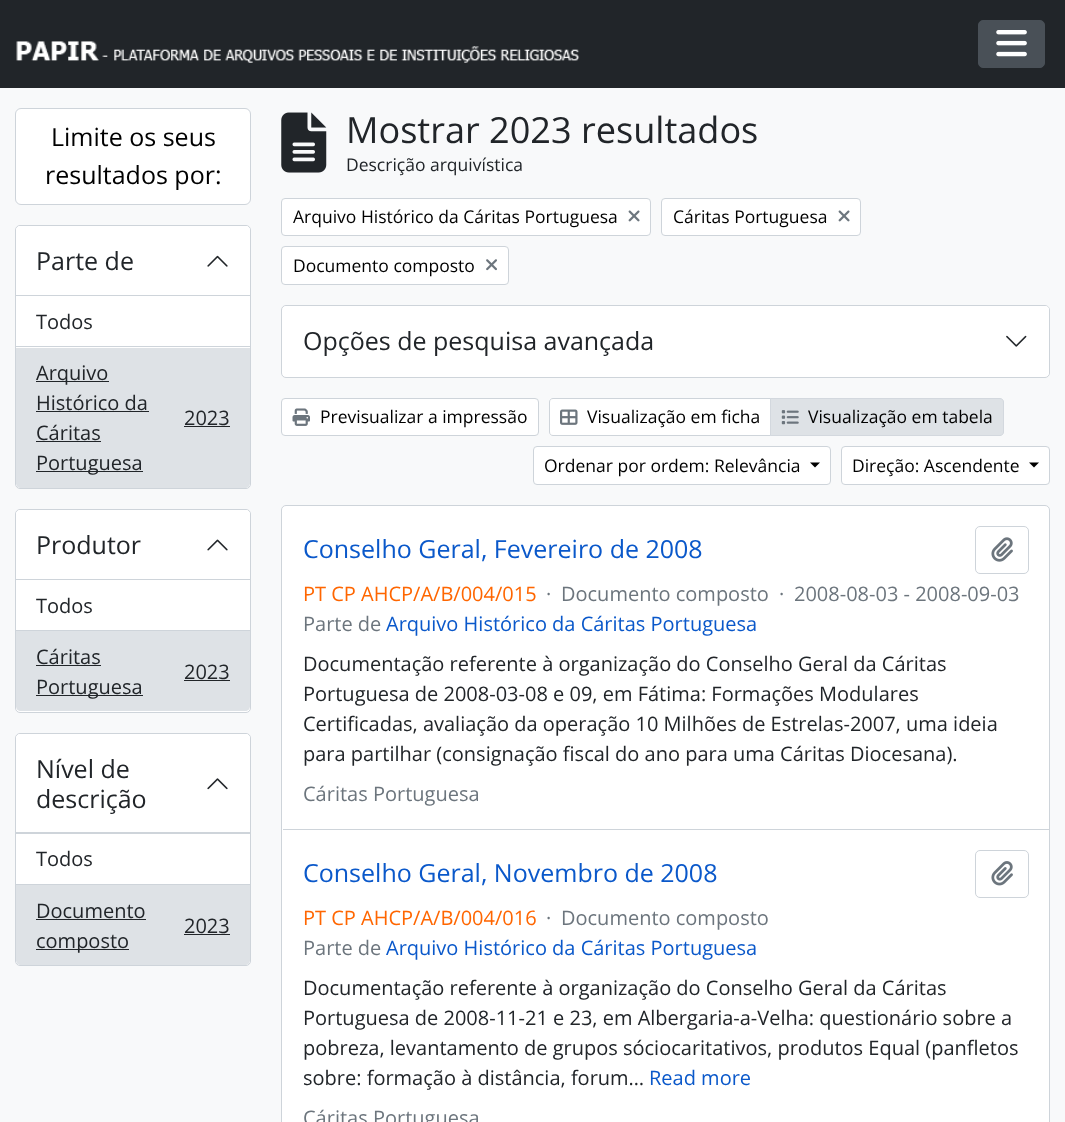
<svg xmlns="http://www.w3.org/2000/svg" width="1065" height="1122">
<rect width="100%" height="100%" fill="#f8f9fa"/>
<rect width="1065" height="88" fill="#212529"/>
<image x="16" y="41" width="564" height="22" href="media/1.png"/>
<rect x="978.5" y="20.5" width="66" height="47" rx="4.5" fill="#495057" stroke="#495057"/>
<image x="996" y="30" width="31" height="27" href="media/2.png"/>
<rect x="15.5" y="108.5" width="235" height="96" rx="5.5" fill="#fff" stroke="#ced4da"/>
<text x="51" y="146" style="font-family:Open Sans;font-size:25px;fill:#000">Limite os seus</text>
<text x="45" y="184" style="font-family:Open Sans;font-size:25px;fill:#000">resultados por:</text>
<rect x="15.5" y="225.5" width="235" height="263" rx="4.5" fill="#fff" stroke="#ced4da"/>
<path d="M20 226h226c2 0 4 2 4 4v66h-234v-66c0-2 2-4 4-4z" fill="#fff"/>
<rect x="16" y="295" width="234" height="1" fill="#ced4da"/>
<text x="36" y="270" style="font-family:Open Sans;font-size:25px;fill:#212529">Parte de</text>
<image x="207" y="255" width="21" height="12" href="media/3.png"/>
<rect x="16" y="346" width="234" height="1" fill="#ced4da"/>
<text x="36" y="329" style="font-family:Open Sans;font-size:20px;fill:#212529">Todos</text>
<path d="M16 348h234v135c0 3-2 5-5 5h-224c-3 0-5-2-5-5z" fill="#dee2e6"/>
<rect x="36" y="381" width="73" height="1" fill="#212529"/>
<text x="36" y="380" style="font-family:Open Sans;font-size:20px;fill:#212529">Arquivo</text>
<text x="36" y="410" style="font-family:Open Sans;font-size:20px;fill:#212529">Histórico da</text>
<rect x="36" y="411" width="113" height="1" fill="#212529"/>
<text x="184" y="425" style="font-family:Open Sans;font-size:20px;fill:#212529">2023</text>
<rect x="184" y="426" width="46" height="1" fill="#212529"/>
<text x="36" y="440" style="font-family:Open Sans;font-size:20px;fill:#212529">Cáritas</text>
<rect x="36" y="441" width="65" height="1" fill="#212529"/>
<rect x="36" y="471" width="107" height="1" fill="#212529"/>
<text x="36" y="470" style="font-family:Open Sans;font-size:20px;fill:#212529">Portuguesa</text>
<rect x="15.5" y="509.5" width="235" height="203" rx="4.5" fill="#fff" stroke="#ced4da"/>
<path d="M20 510h226c2 0 4 2 4 4v66h-234v-66c0-2 2-4 4-4z" fill="#fff"/>
<rect x="16" y="579" width="234" height="1" fill="#ced4da"/>
<text x="36" y="554" style="font-family:Open Sans;font-size:25px;fill:#212529">Produtor</text>
<image x="207" y="539" width="21" height="12" href="media/4.png"/>
<rect x="16" y="630" width="234" height="1" fill="#ced4da"/>
<text x="36" y="613" style="font-family:Open Sans;font-size:20px;fill:#212529">Todos</text>
<path d="M16 631h234v75c0 3-2 5-5 5h-224c-3 0-5-2-5-5z" fill="#dee2e6"/>
<text x="36" y="664" style="font-family:Open Sans;font-size:20px;fill:#212529">Cáritas</text>
<rect x="36" y="665" width="65" height="1" fill="#212529"/>
<text x="184" y="679" style="font-family:Open Sans;font-size:20px;fill:#212529">2023</text>
<rect x="184" y="680" width="46" height="1" fill="#212529"/>
<rect x="36" y="695" width="107" height="1" fill="#212529"/>
<text x="36" y="694" style="font-family:Open Sans;font-size:20px;fill:#212529">Portuguesa</text>
<rect x="15.5" y="733.5" width="235" height="232" rx="4.5" fill="#fff" stroke="#ced4da"/>
<path d="M20 734h226c2 0 4 2 4 4v96h-234v-96c0-2 2-4 4-4z" fill="#fff"/>
<rect x="16" y="832" width="234" height="2" fill="#ced4da"/>
<text x="36" y="778" style="font-family:Open Sans;font-size:25px;fill:#212529">Nível de</text>
<image x="207" y="778" width="21" height="12" href="media/5.png"/>
<text x="36" y="808" style="font-family:Open Sans;font-size:25px;fill:#212529">descrição</text>
<rect x="16" y="884" width="234" height="1" fill="#ced4da"/>
<text x="36" y="866" style="font-family:Open Sans;font-size:20px;fill:#212529">Todos</text>
<path d="M16 885h234v75c0 3-2 5-5 5h-224c-3 0-5-2-5-5z" fill="#dee2e6"/>
<text x="36" y="918" style="font-family:Open Sans;font-size:20px;fill:#212529">Documento</text>
<rect x="36" y="919" width="110" height="1" fill="#212529"/>
<text x="184" y="933" style="font-family:Open Sans;font-size:20px;fill:#212529">2023</text>
<rect x="184" y="934" width="46" height="1" fill="#212529"/>
<rect x="36" y="949" width="93" height="1" fill="#212529"/>
<text x="36" y="948" style="font-family:Open Sans;font-size:20px;fill:#212529">composto</text>
<image x="281" y="112" width="46" height="61" href="media/6.png"/>
<text x="346" y="143" style="font-family:Open Sans;font-size:36.1px;fill:#212529">Mostrar 2023 resultados</text>
<text x="346" y="171" style="font-family:Open Sans;font-size:17.5px;fill:#212529">Descrição arquivística</text>
<rect x="281.5" y="198.5" width="369" height="37" rx="3.5" fill="#fff" stroke="#ced4da"/>
<text x="293" y="223" style="font-family:Open Sans;font-size:17.5px;fill:#000">Arquivo Histórico da Cáritas Portuguesa</text>
<image x="628" y="210" width="12" height="12" href="media/7.png"/>
<rect x="661.5" y="198.5" width="199" height="37" rx="3.5" fill="#fff" stroke="#ced4da"/>
<text x="673" y="223" style="font-family:Open Sans;font-size:17.5px;fill:#000">Cáritas Portuguesa</text>
<image x="838" y="210" width="12" height="12" href="media/7.png"/>
<rect x="281.5" y="246.5" width="227" height="38" rx="3.5" fill="#fff" stroke="#ced4da"/>
<text x="293" y="272" style="font-family:Open Sans;font-size:17.5px;fill:#000">Documento composto</text>
<image x="486" y="259" width="11" height="12" href="media/8.png"/>
<rect x="281.5" y="305.5" width="768" height="72" rx="4.5" fill="#fff" stroke="#ced4da"/>
<rect x="283" y="306" width="766" height="70" rx="4" fill="#fff"/>
<text x="303" y="350" style="font-family:Open Sans;font-size:25px;fill:#212529">Opções de pesquisa avançada</text>
<image x="1006" y="335" width="21" height="12" href="media/9.png"/>
<rect x="281.5" y="398.5" width="257" height="37" rx="3.5" fill="#fff" stroke="#ced4da"/>
<image x="292" y="408" width="18" height="18" href="media/10.png"/>
<text x="320" y="423" style="font-family:Open Sans;font-size:17.5px;fill:#000">Previsualizar a impressão</text>
<path d="M553 398.5h217.5v37h-217.5c-2 0-3.5-1.5-3.5-3.5v-30c0-2 1.5-3.5 3.5-3.5z" fill="#fff" stroke="#ced4da"/>
<image x="560" y="409" width="18" height="16" href="media/11.png"/>
<text x="587" y="423" style="font-family:Open Sans;font-size:17.5px;fill:#000">Visualização em ficha</text>
<path d="M770.5 398.5h229.5c2 0 3.5 1.5 3.5 3.5v30c0 2-1.5 3.5-3.5 3.5h-229.5z" fill="#dee2e6" stroke="#d3d8de"/>
<image x="781" y="410" width="18" height="15" href="media/12.png"/>
<text x="808" y="423" style="font-family:Open Sans;font-size:17.5px;fill:#000">Visualização em tabela</text>
<rect x="533.5" y="446.5" width="297" height="38" rx="3.5" fill="#fff" stroke="#ced4da"/>
<text x="544" y="472" style="font-family:Open Sans;font-size:17.5px;fill:#000">Ordenar por ordem: Relevância</text>
<path d="M810 462.5h10l-5 5z" fill="#000"/>
<rect x="841.5" y="446.5" width="208" height="38" rx="3.5" fill="#fff" stroke="#ced4da"/>
<text x="852" y="472" style="font-family:Open Sans;font-size:17.5px;fill:#000">Direção: Ascendente</text>
<path d="M1029 462.5h10l-5 5z" fill="#000"/>
<rect x="281.5" y="505.5" width="768" height="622" rx="4.5" fill="#fff" stroke="#ced4da"/>
<rect x="283" y="829" width="766" height="1" fill="#ced4da"/>
<text x="303" y="558" style="font-family:Open Sans;font-size:25px;fill:#0a58ca">Conselho Geral, Fevereiro de 2008</text>
<rect x="975.5" y="526.5" width="53" height="47" rx="4.5" fill="none" stroke="#ced4da"/>
<image x="991" y="537" width="22" height="25" href="media/13.png"/>
<text x="303" y="601" style="font-family:Open Sans;font-size:20px;fill:#f60">PT CP AHCP/A/B/004/015</text>
<text x="546" y="601" style="font-family:Open Sans;font-size:20px;fill:#6c757d">·</text>
<text x="561" y="601" style="font-family:Open Sans;font-size:20px;fill:#6c757d">Documento composto</text>
<text x="779" y="601" style="font-family:Open Sans;font-size:20px;fill:#6c757d">·</text>
<text x="794" y="601" style="font-family:Open Sans;font-size:20px;fill:#6c757d">2008-08-03 - 2008-09-03</text>
<text x="303" y="631" style="font-family:Open Sans;font-size:20px;fill:#6c757d">Parte de</text>
<text x="386" y="631" style="font-family:Open Sans;font-size:20px;fill:#0a58ca">Arquivo Histórico da Cáritas Portuguesa</text>
<text x="303" y="671" style="font-family:Open Sans;font-size:20px;fill:#212529">Documentação referente à organização do Conselho Geral da Cáritas</text>
<text x="303" y="701" style="font-family:Open Sans;font-size:20px;fill:#212529">Portuguesa de 2008-03-08 e 09, em Fátima: Formações Modulares</text>
<text x="303" y="731" style="font-family:Open Sans;font-size:20px;fill:#212529">Certificadas, avaliação da operação 10 Milhões de Estrelas-2007, uma ideia</text>
<text x="303" y="761" style="font-family:Open Sans;font-size:20px;fill:#212529">para partilhar (consignação fiscal do ano para uma Cáritas Diocesana).</text>
<text x="303" y="801" style="font-family:Open Sans;font-size:20px;fill:#6c757d">Cáritas Portuguesa</text>
<text x="303" y="882" style="font-family:Open Sans;font-size:25px;fill:#0a58ca">Conselho Geral, Novembro de 2008</text>
<rect x="975.5" y="850.5" width="53" height="47" rx="4.5" fill="none" stroke="#ced4da"/>
<image x="991" y="861" width="22" height="25" href="media/14.png"/>
<text x="303" y="925" style="font-family:Open Sans;font-size:20px;fill:#f60">PT CP AHCP/A/B/004/016</text>
<text x="546" y="925" style="font-family:Open Sans;font-size:20px;fill:#6c757d">·</text>
<text x="561" y="925" style="font-family:Open Sans;font-size:20px;fill:#6c757d">Documento composto</text>
<text x="303" y="955" style="font-family:Open Sans;font-size:20px;fill:#6c757d">Parte de</text>
<text x="386" y="955" style="font-family:Open Sans;font-size:20px;fill:#0a58ca">Arquivo Histórico da Cáritas Portuguesa</text>
<text x="303" y="995" style="font-family:Open Sans;font-size:20px;fill:#212529">Documentação referente à organização do Conselho Geral da Cáritas</text>
<text x="303" y="1025" style="font-family:Open Sans;font-size:20px;fill:#212529">Portuguesa de 2008-11-21 e 23, em Albergaria-a-Velha: questionário sobre a</text>
<text x="303" y="1055" style="font-family:Open Sans;font-size:20px;fill:#212529">pobreza, levantamento de grupos sóciocaritativos, produtos Equal (panfletos</text>
<text x="303" y="1085" style="font-family:Open Sans;font-size:20px;fill:#212529">sobre: formação à distância, forum…</text>
<text x="649" y="1085" style="font-family:Open Sans;font-size:20px;fill:#0a58ca">Read more</text>
<text x="303" y="1125" style="font-family:Open Sans;font-size:20px;fill:#6c757d">Cáritas Portuguesa</text>
</svg>
